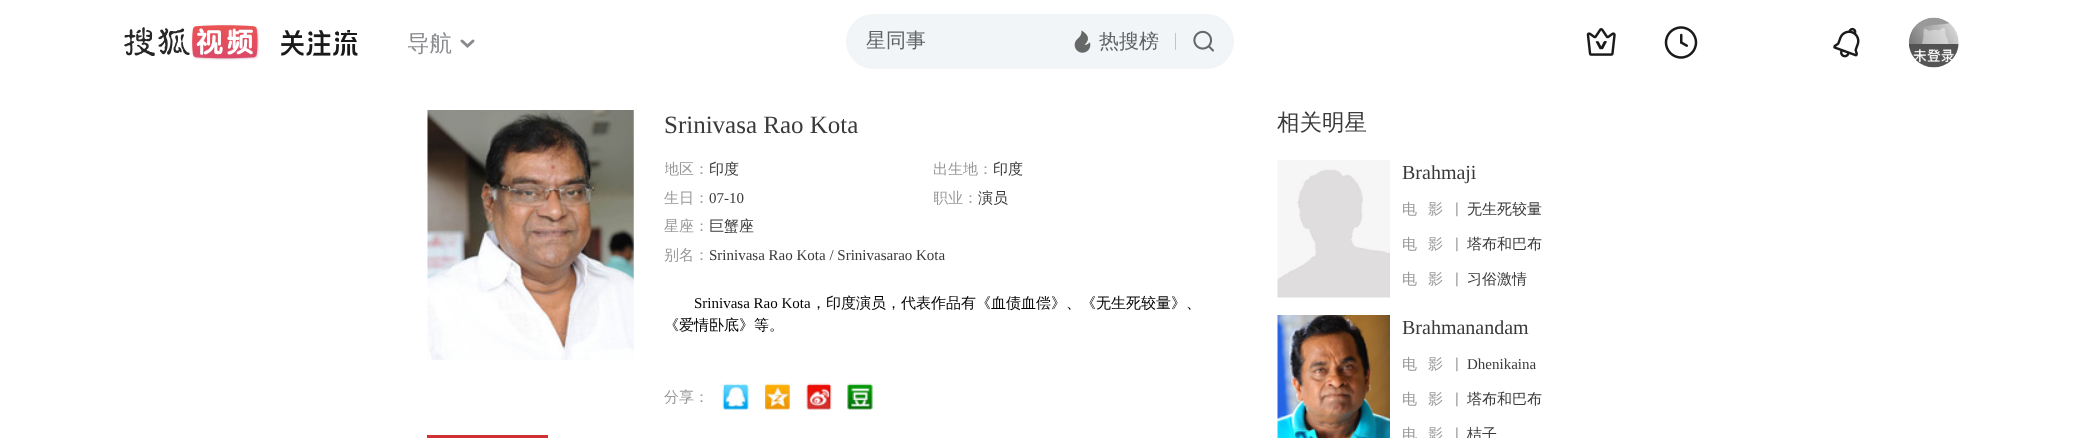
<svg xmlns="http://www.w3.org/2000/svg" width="2078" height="438">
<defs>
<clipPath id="clip1"><rect x="665" y="158" width="263" height="22"/></clipPath>
<clipPath id="clip2"><rect x="934" y="186" width="262" height="23"/></clipPath>
</defs>
<rect width="100%" height="100%" fill="#fff"/>
<image x="124" y="24" width="136" height="37" href="media/1.png"/>
<image x="281" y="30" width="77" height="26" href="media/2.png"/>
<text x="407" y="51" style="font-family:WenQuanYi Zen Hei;font-size:22.5px;font-weight:500;fill:#888a8e">导航</text>
<path d="M462 41l5.5 5l5.5-5" fill="none" stroke="#888a8e" stroke-width="3" stroke-linecap="round"/>
<rect x="846" y="14" width="388" height="55" rx="27.5" fill="#f2f5f7"/>
<text x="866" y="47" style="font-family:WenQuanYi Zen Hei;font-size:20px;font-weight:500;fill:#616263">星同事</text>
<image x="1074" y="30" width="17" height="23" href="media/3.png"/>
<text x="1099" y="48" style="font-family:WenQuanYi Zen Hei;font-size:20px;font-weight:500;fill:#616263">热搜榜</text>
<rect x="1175" y="33" width="1" height="17" fill="#c2c4c6"/>
<image x="1193" y="30" width="21" height="22" href="media/4.png"/>
<image x="1586" y="28" width="30" height="28" href="media/5.png"/>
<image x="1664" y="26" width="34" height="33" href="media/6.png"/>
<image x="1833" y="27" width="27" height="31" href="media/7.png"/>
<image x="1908" y="17" width="51" height="51" href="media/8.png"/>
<image x="427" y="110" width="207" height="250" href="media/9.png"/>
<text x="664" y="133" style="font-family:Liberation Serif;font-size:25px;fill:#3a3a3a">Srinivasa Rao Kota</text>
<g clip-path="url(#clip1)">
<text x="664" y="174" style="font-family:WenQuanYi Zen Hei;font-size:15px;font-weight:500;fill:#999">地区：</text>
</g>
<text x="709" y="174" style="font-family:WenQuanYi Zen Hei;font-size:15px;font-weight:500;fill:#3a3a3a">印度</text>
<text x="933" y="174" style="font-family:WenQuanYi Zen Hei;font-size:15px;font-weight:500;fill:#999">出生地：</text>
<text x="993" y="174" style="font-family:WenQuanYi Zen Hei;font-size:15px;font-weight:500;fill:#3a3a3a">印度</text>
<text x="664" y="203" style="font-family:WenQuanYi Zen Hei;font-size:15px;font-weight:500;fill:#999">生日：</text>
<text x="709" y="203" style="font-family:Liberation Serif;font-size:15px;fill:#3a3a3a">07-10</text>
<g clip-path="url(#clip2)">
<text x="933" y="203" style="font-family:WenQuanYi Zen Hei;font-size:15px;font-weight:500;fill:#999">职业：</text>
</g>
<text x="978" y="203" style="font-family:WenQuanYi Zen Hei;font-size:15px;font-weight:500;fill:#3a3a3a">演员</text>
<text x="664" y="231" style="font-family:WenQuanYi Zen Hei;font-size:15px;font-weight:500;fill:#999">星座：</text>
<text x="709" y="231" style="font-family:WenQuanYi Zen Hei;font-size:15px;font-weight:500;fill:#3a3a3a">巨蟹座</text>
<text x="664" y="260" style="font-family:WenQuanYi Zen Hei;font-size:15px;font-weight:500;fill:#999">别名：</text>
<text x="709" y="260" style="font-family:Liberation Serif;font-size:15px;fill:#3a3a3a">Srinivasa Rao Kota / Srinivasarao Kota</text>
<text x="694" y="308" style="font-family:Liberation Serif;font-size:15px;fill:#000">Srinivasa Rao Kota</text>
<text x="811" y="308" style="font-family:WenQuanYi Zen Hei;font-size:15px;font-weight:500;fill:#000">，印度演员，代表作品有《血债血偿》、《无生死较量》、</text>
<text x="664" y="330" style="font-family:WenQuanYi Zen Hei;font-size:15px;font-weight:500;fill:#000">《爱情卧底》等。</text>
<text x="664" y="402" style="font-family:WenQuanYi Zen Hei;font-size:15px;font-weight:500;fill:#999">分享：</text>
<image x="722" y="383" width="27" height="27" href="media/10.png"/>
<image x="765" y="383" width="25" height="27" href="media/11.png"/>
<image x="806" y="383" width="26" height="27" href="media/12.png"/>
<image x="847" y="383" width="26" height="27" href="media/13.png"/>
<rect x="427" y="435" width="121" height="3" fill="#d03032"/>
<text x="1277" y="130" style="font-family:WenQuanYi Zen Hei;font-size:22.5px;font-weight:500;fill:#3a3a3a">相关明星</text>
<image x="1277" y="160" width="113" height="138" href="media/14.png"/>
<text x="1402" y="179" style="font-family:Liberation Serif;font-size:20px;fill:#3a3a3a">Brahmaji</text>
<image x="1456" y="202" width="2" height="15" href="media/15.png"/>
<text x="1402" y="214" style="font-family:WenQuanYi Zen Hei;font-size:15px;font-weight:500;fill:#999">电</text>
<text x="1428" y="214" style="font-family:WenQuanYi Zen Hei;font-size:15px;font-weight:500;fill:#999">影</text>
<text x="1467" y="214" style="font-family:WenQuanYi Zen Hei;font-size:15px;font-weight:500;fill:#3a3a3a">无生死较量</text>
<image x="1456" y="237" width="2" height="15" href="media/15.png"/>
<text x="1402" y="249" style="font-family:WenQuanYi Zen Hei;font-size:15px;font-weight:500;fill:#999">电</text>
<text x="1428" y="249" style="font-family:WenQuanYi Zen Hei;font-size:15px;font-weight:500;fill:#999">影</text>
<text x="1467" y="249" style="font-family:WenQuanYi Zen Hei;font-size:15px;font-weight:500;fill:#3a3a3a">塔布和巴布</text>
<image x="1456" y="272" width="2" height="15" href="media/15.png"/>
<text x="1402" y="284" style="font-family:WenQuanYi Zen Hei;font-size:15px;font-weight:500;fill:#999">电</text>
<text x="1428" y="284" style="font-family:WenQuanYi Zen Hei;font-size:15px;font-weight:500;fill:#999">影</text>
<text x="1467" y="284" style="font-family:WenQuanYi Zen Hei;font-size:15px;font-weight:500;fill:#3a3a3a">习俗激情</text>
<image x="1277" y="315" width="113" height="123" href="media/16.png"/>
<text x="1402" y="334" style="font-family:Liberation Serif;font-size:20px;fill:#3a3a3a">Brahmanandam</text>
<image x="1456" y="357" width="2" height="15" href="media/15.png"/>
<text x="1402" y="369" style="font-family:WenQuanYi Zen Hei;font-size:15px;font-weight:500;fill:#999">电</text>
<text x="1428" y="369" style="font-family:WenQuanYi Zen Hei;font-size:15px;font-weight:500;fill:#999">影</text>
<text x="1467" y="369" style="font-family:Liberation Serif;font-size:15px;fill:#3a3a3a">Dhenikaina</text>
<image x="1456" y="392" width="2" height="15" href="media/15.png"/>
<text x="1402" y="404" style="font-family:WenQuanYi Zen Hei;font-size:15px;font-weight:500;fill:#999">电</text>
<text x="1428" y="404" style="font-family:WenQuanYi Zen Hei;font-size:15px;font-weight:500;fill:#999">影</text>
<text x="1467" y="404" style="font-family:WenQuanYi Zen Hei;font-size:15px;font-weight:500;fill:#3a3a3a">塔布和巴布</text>
<image x="1456" y="427" width="2" height="11" href="media/17.png"/>
<text x="1402" y="439" style="font-family:WenQuanYi Zen Hei;font-size:15px;font-weight:500;fill:#999">电</text>
<text x="1428" y="439" style="font-family:WenQuanYi Zen Hei;font-size:15px;font-weight:500;fill:#999">影</text>
<text x="1467" y="439" style="font-family:WenQuanYi Zen Hei;font-size:15px;font-weight:500;fill:#3a3a3a">桔子</text>
</svg>
